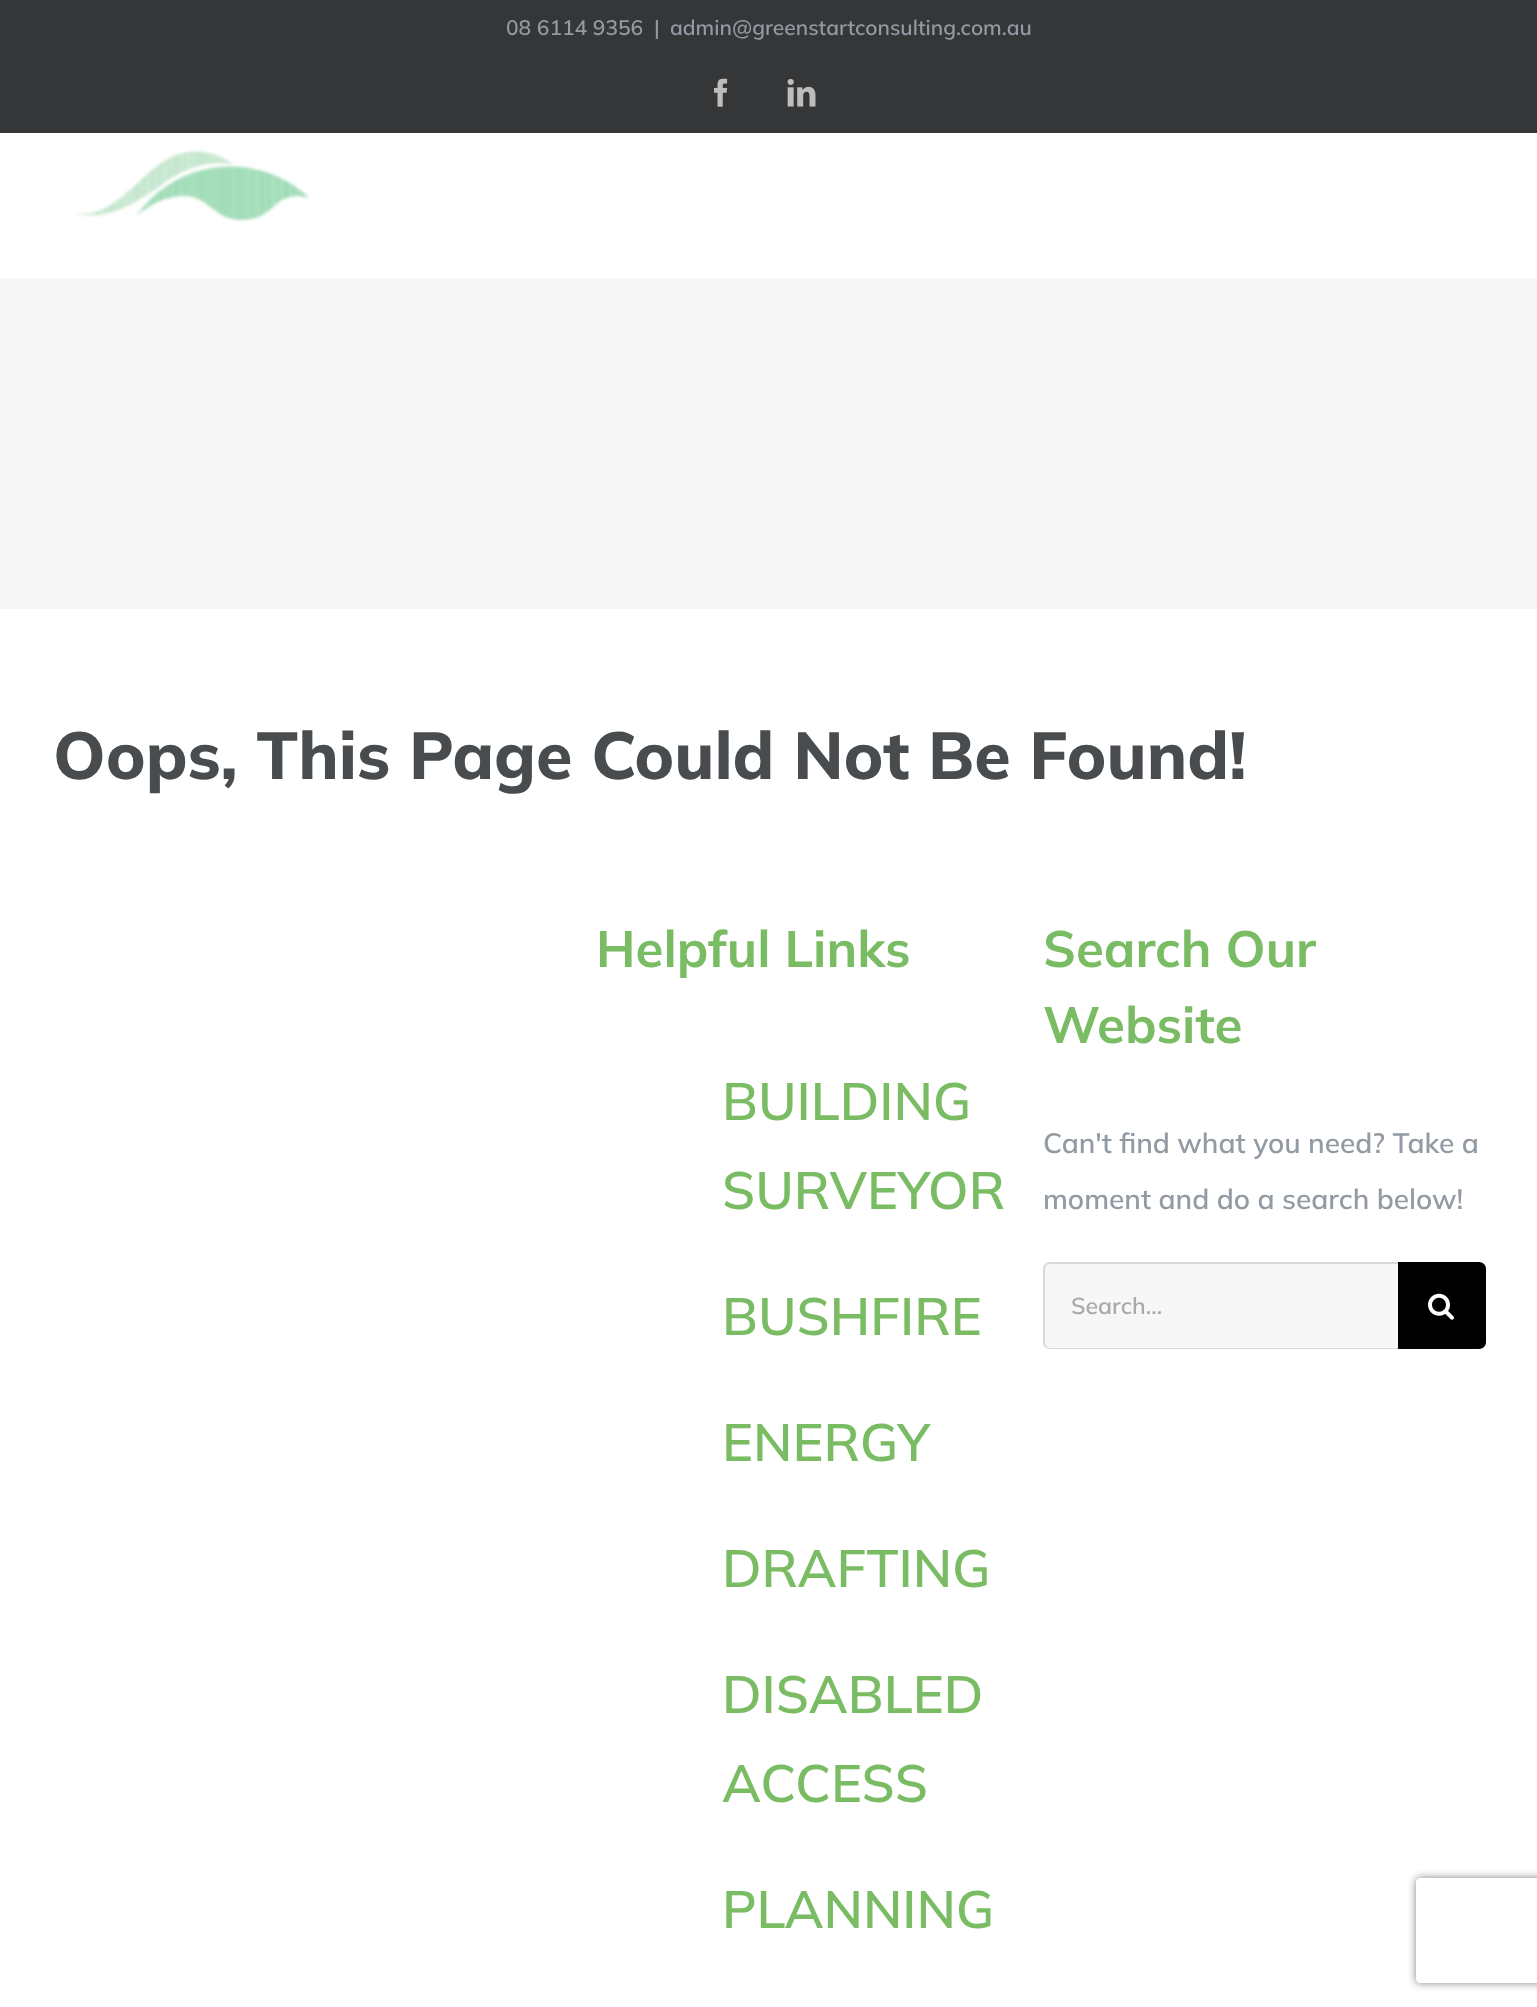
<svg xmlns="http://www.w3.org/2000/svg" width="1537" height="2007">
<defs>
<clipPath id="clip1"><path d="M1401 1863h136v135h-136zm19 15h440c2 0 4 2 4 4v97c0 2-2 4-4 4h-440c-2 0-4-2-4-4v-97c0-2 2-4 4-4z" clip-rule="evenodd"/></clipPath>
</defs>
<rect width="100%" height="100%" fill="#fff"/>
<rect width="1537" height="133" fill="#353637"/>
<text x="506" y="35" style="font-family:Mulish;font-size:21px;font-weight:600;fill:#929aa3">08 6114 9356</text>
<text x="654" y="35" style="font-family:Mulish;font-size:21px;font-weight:600;fill:#929aa3">|</text>
<text x="670" y="35" style="font-family:Mulish;font-size:21px;font-weight:600;fill:#929aa3">admin@greenstartconsulting.com.au</text>
<image x="714" y="78" width="14" height="29" href="media/1.png"/>
<image x="787" y="79" width="29" height="28" href="media/2.png"/>
<image x="76" y="149" width="234" height="73" href="media/3.png"/>
<rect y="278" width="1537" height="331" fill="#f6f6f6"/>
<text x="53" y="779" style="font-family:Mulish;font-size:66.25px;font-weight:800;fill:#494c4e">Oops, This Page Could Not Be Found!</text>
<text x="596" y="967" style="font-family:Mulish;font-size:51px;font-weight:bold;fill:#7abc64">Helpful Links</text>
<text x="722" y="1120" style="font-family:Mulish;font-size:52.5px;font-weight:600;fill:#7abc64">BUILDING</text>
<text x="722" y="1209" style="font-family:Mulish;font-size:52.5px;font-weight:600;fill:#7abc64">SURVEYOR</text>
<text x="722" y="1335" style="font-family:Mulish;font-size:52.5px;font-weight:600;fill:#7abc64">BUSHFIRE</text>
<text x="722" y="1461" style="font-family:Mulish;font-size:52.5px;font-weight:600;fill:#7abc64">ENERGY</text>
<text x="722" y="1587" style="font-family:Mulish;font-size:52.5px;font-weight:600;fill:#7abc64">DRAFTING</text>
<text x="722" y="1713" style="font-family:Mulish;font-size:52.5px;font-weight:600;fill:#7abc64">DISABLED</text>
<text x="722" y="1802" style="font-family:Mulish;font-size:52.5px;font-weight:600;fill:#7abc64">ACCESS</text>
<text x="722" y="1928" style="font-family:Mulish;font-size:52.5px;font-weight:600;fill:#7abc64">PLANNING</text>
<text x="1043" y="967" style="font-family:Mulish;font-size:51px;font-weight:bold;fill:#7abc64">Search Our</text>
<text x="1043" y="1043" style="font-family:Mulish;font-size:51px;font-weight:bold;fill:#7abc64">Website</text>
<text x="1043" y="1153" style="font-family:Mulish;font-size:28px;font-weight:600;fill:#929aa3">Can't find what you need? Take a</text>
<text x="1043" y="1209" style="font-family:Mulish;font-size:28px;font-weight:600;fill:#929aa3">moment and do a search below!</text>
<path d="M1050 1262h348v87h-348c-4 0-7-3-7-7v-73c0-4 3-7 7-7z" fill="#f7f7f7"/>
<path d="M1050 1262c-4 0-7 3-7 7v73c0 4 3 7 7 7h348v-1h-348c-3 0-5-3-5-6v-73c0-3 2-5 5-5h348v-2z" fill="#d8d8d8"/>
<text x="1071" y="1314" style="font-family:Mulish;font-size:23px;font-weight:600;fill:#aaa9a9">Search...</text>
<path d="M1398 1262h81c4 0 7 3 7 7v73c0 4-3 7-7 7h-81z" fill="#000"/>
<image x="1428" y="1293" width="26" height="27" href="media/4.png"/>
<g clip-path="url(#clip1)">
<rect x="1416" y="1878" width="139" height="105" rx="4" fill="#808080" filter="blur(4.5px)"/>
</g>
</svg>
